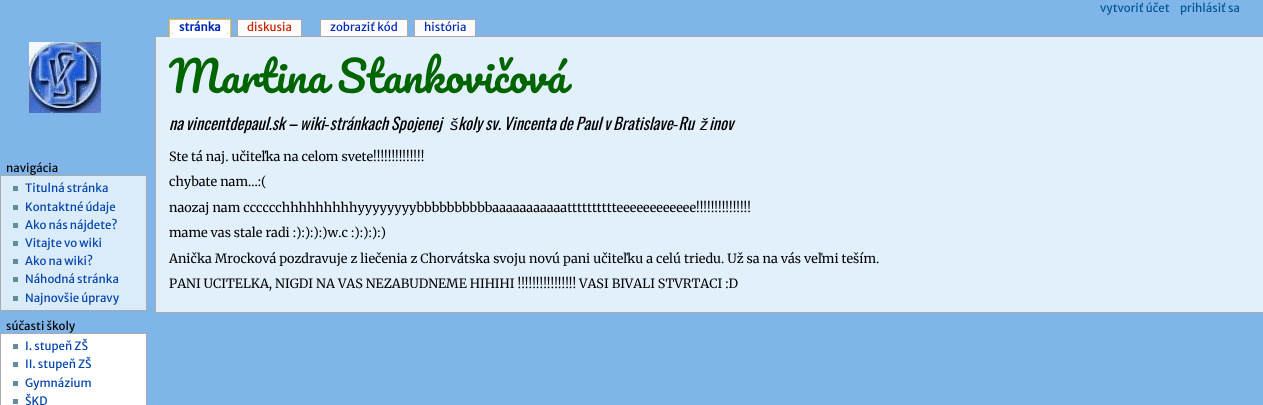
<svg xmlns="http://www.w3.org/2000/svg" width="1263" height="405">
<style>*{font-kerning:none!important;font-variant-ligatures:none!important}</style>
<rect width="100%" height="100%" fill="#7fb5e8"/>
<text x="1100" y="12" style="font-family:Merriweather Sans;font-size:11.5px;fill:#005896">vytvoriť účet</text>
<text x="1180" y="12" style="font-family:Merriweather Sans;font-size:11.5px;fill:#005896">prihlásiť sa</text>
<rect x="156" y="37" width="1107" height="275" fill="#e2f0fb"/>
<rect x="155" y="36" width="1108" height="1" fill="#aaa"/>
<rect x="170" y="20" width="60" height="18" fill="#fff"/>
<text x="179" y="31" style="font-family:Merriweather Sans;font-size:11.5px;font-weight:bold;fill:#002bb8">stránka</text>
<rect x="169" y="19" width="62" height="1" fill="#fabd23"/>
<rect x="230" y="19" width="1" height="17" fill="#fabd23"/>
<rect x="169" y="19" width="1" height="17" fill="#fabd23"/>
<rect x="238" y="20" width="63" height="16" fill="#fbfbfb"/>
<text x="247" y="31" style="font-family:Merriweather Sans;font-size:11.5px;fill:#c20">diskusia</text>
<rect x="237" y="19" width="65" height="1" fill="#aaa"/>
<rect x="301" y="19" width="1" height="17" fill="#aaa"/>
<rect x="237" y="19" width="1" height="17" fill="#aaa"/>
<rect x="321" y="20" width="86" height="16" fill="#fbfbfb"/>
<text x="330" y="31" style="font-family:Merriweather Sans;font-size:11.5px;fill:#002bb8">zobraziť kód</text>
<rect x="320" y="19" width="88" height="1" fill="#aaa"/>
<rect x="407" y="19" width="1" height="17" fill="#aaa"/>
<rect x="320" y="19" width="1" height="17" fill="#aaa"/>
<rect x="415" y="20" width="60" height="16" fill="#fbfbfb"/>
<text x="424" y="31" style="font-family:Merriweather Sans;font-size:11.5px;fill:#002bb8">história</text>
<rect x="414" y="19" width="62" height="1" fill="#aaa"/>
<rect x="475" y="19" width="1" height="17" fill="#aaa"/>
<rect x="414" y="19" width="1" height="17" fill="#aaa"/>
<image x="29" y="42" width="72" height="71" href="media/1.png"/>
<text x="6" y="172" style="font-family:Merriweather Sans;font-size:11.5px;fill:#000">navigácia</text>
<rect x="0.5" y="175.5" width="146" height="135" fill="#daecfa" stroke="#aaa"/>
<rect x="13" y="186" width="5" height="5" fill="#638c9c"/>
<text x="25" y="192" style="font-family:Merriweather Sans;font-size:11.5px;fill:#0645ad">Titulná stránka</text>
<rect x="13" y="205" width="5" height="5" fill="#638c9c"/>
<text x="25" y="211" style="font-family:Merriweather Sans;font-size:11.5px;fill:#0645ad">Kontaktné údaje</text>
<rect x="13" y="223" width="5" height="5" fill="#638c9c"/>
<text x="25" y="229" style="font-family:Merriweather Sans;font-size:11.5px;fill:#0645ad">Ako nás nájdete?</text>
<rect x="13" y="241" width="5" height="5" fill="#638c9c"/>
<text x="25" y="247" style="font-family:Merriweather Sans;font-size:11.5px;fill:#0645ad">Vitajte vo wiki</text>
<rect x="13" y="259" width="5" height="5" fill="#638c9c"/>
<text x="25" y="265" style="font-family:Merriweather Sans;font-size:11.5px;fill:#0645ad">Ako na wiki?</text>
<rect x="13" y="277" width="5" height="5" fill="#638c9c"/>
<text x="25" y="283" style="font-family:Merriweather Sans;font-size:11.5px;fill:#0645ad">Náhodná stránka</text>
<rect x="13" y="296" width="5" height="5" fill="#638c9c"/>
<text x="25" y="302" style="font-family:Merriweather Sans;font-size:11.5px;fill:#0645ad">Najnovšie úpravy</text>
<text x="6" y="330" style="font-family:Merriweather Sans;font-size:11.5px;fill:#000">súčasti školy</text>
<rect x="0.5" y="333.5" width="146" height="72" fill="#fff" stroke="#aaa"/>
<rect x="13" y="344" width="5" height="5" fill="#638c9c"/>
<text x="25" y="350" style="font-family:Merriweather Sans;font-size:11.5px;fill:#0645ad">I. stupeň ZŠ</text>
<rect x="13" y="362" width="5" height="5" fill="#638c9c"/>
<text x="25" y="368" style="font-family:Merriweather Sans;font-size:11.5px;fill:#0645ad">II. stupeň ZŠ</text>
<rect x="13" y="381" width="5" height="5" fill="#638c9c"/>
<text x="25" y="387" style="font-family:Merriweather Sans;font-size:11.5px;fill:#0645ad">Gymnázium</text>
<rect x="13" y="399" width="5" height="5" fill="#638c9c"/>
<text x="25" y="405" style="font-family:Merriweather Sans;font-size:11.5px;fill:#0645ad">ŠKD</text>
<rect x="155" y="312" width="1108" height="1" fill="#aaa"/>
<rect x="155" y="36" width="1" height="277" fill="#aaa"/>
<text x="169" y="93" word-spacing="-1" style="font-family:Pacifico;font-size:42px;fill:#006400">Martina Stankovičová</text>
<text x="169" y="130" word-spacing="-1" style="font-family:Oswald;font-size:16.5px;font-style:italic;fill:#000">na vincentdepaul.sk – wiki‑stránkach Spojenej</text>
<text x="450" y="130" style="font-family:Liberation Sans;font-size:16.5px;font-style:italic;fill:#000">š</text>
<text x="458" y="130" word-spacing="-1" style="font-family:Oswald;font-size:16.5px;font-style:italic;fill:#000">koly sv. Vincenta de Paul v Bratislave‑Ru</text>
<text x="700" y="130" style="font-family:Liberation Sans;font-size:16.5px;font-style:italic;fill:#000">ž</text>
<text x="709" y="130" style="font-family:Oswald;font-size:16.5px;font-style:italic;fill:#000">inov</text>
<text x="169" y="161" style="font-family:Merriweather;font-size:12.7px;font-weight:300;fill:#000">Ste tá naj. učiteľka na celom svete!!!!!!!!!!!!!!</text>
<text x="169" y="186" style="font-family:Merriweather;font-size:12.7px;font-weight:300;fill:#000">chybate nam...:(</text>
<text x="169" y="212" style="font-family:Merriweather;font-size:12.7px;font-weight:300;fill:#000">naozaj nam cccccchhhhhhhhhyyyyyyyybbbbbbbbbbaaaaaaaaaaatttttttttteeeeeeeeeeee!!!!!!!!!!!!!!!</text>
<text x="169" y="237" style="font-family:Merriweather;font-size:12.7px;font-weight:300;fill:#000">mame vas stale radi :):):):)w.c</text>
<text x="351" y="237" style="font-family:Merriweather;font-size:12.7px;font-weight:300;fill:#000">:):):):)</text>
<text x="169" y="263" style="font-family:Merriweather;font-size:12.7px;font-weight:300;fill:#000">Anička Mrocková pozdravuje z liečenia z Chorvátska svoju novú pani učiteľku a celú triedu. Už sa na vás veľmi teším.</text>
<text x="169" y="288" style="font-family:Merriweather;font-size:12.7px;font-weight:300;fill:#000">PANI UCITELKA, NIGDI NA VAS NEZABUDNEME HIHIHI !!!!!!!!!!!!!!!!</text>
<text x="579" y="288" style="font-family:Merriweather;font-size:12.7px;font-weight:300;fill:#000">VASI BIVALI STVRTACI :D</text>
</svg>
